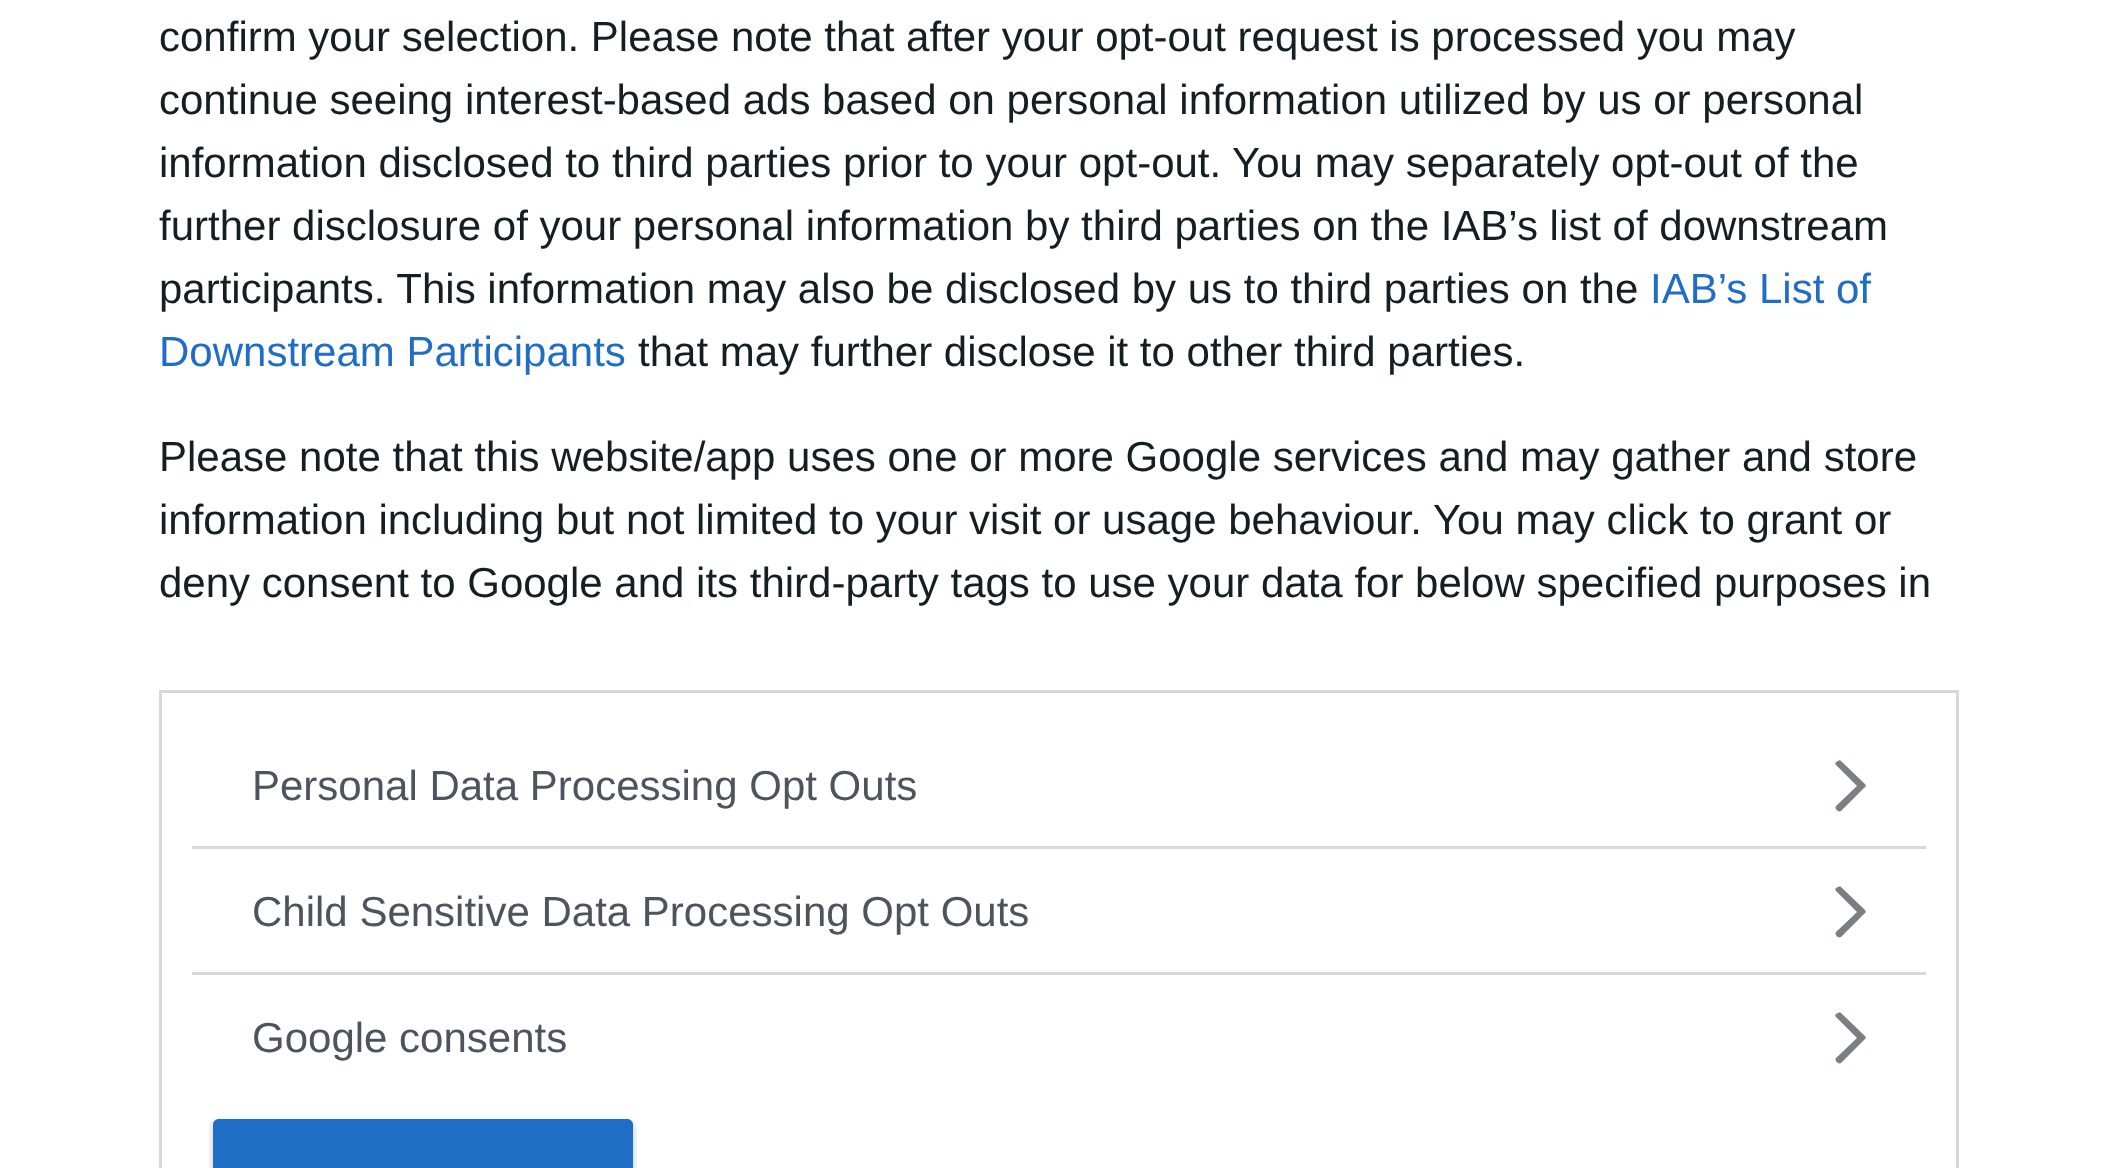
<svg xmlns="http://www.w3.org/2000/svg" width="2117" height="1168">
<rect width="100%" height="100%" fill="#fff"/>
<text x="159" y="51" style="font-family:Liberation Sans;font-size:42px;fill:#141e23">confirm your selection. Please note that after your opt-out request is processed you may</text>
<text x="159" y="114" style="font-family:Liberation Sans;font-size:42px;fill:#141e23">continue seeing interest-based ads based on personal information utilized by us or personal</text>
<text x="159" y="177" style="font-family:Liberation Sans;font-size:42px;fill:#141e23">information disclosed to third parties prior to your opt-out. You may separately opt-out of the</text>
<text x="159" y="240" style="font-family:Liberation Sans;font-size:42px;fill:#141e23">further disclosure of your personal information by third parties on the IAB’s list of downstream</text>
<text x="159" y="303" style="font-family:Liberation Sans;font-size:42px;fill:#141e23">participants. This information may also be disclosed by us to third parties on the</text>
<text x="1650" y="303" style="font-family:Liberation Sans;font-size:42px;fill:#206dc5">IAB’s List of</text>
<text x="159" y="366" style="font-family:Liberation Sans;font-size:42px;fill:#206dc5">Downstream Participants</text>
<text x="638" y="366" style="font-family:Liberation Sans;font-size:42px;fill:#141e23">that may further disclose it to other third parties.</text>
<text x="159" y="471" style="font-family:Liberation Sans;font-size:42px;fill:#141e23">Please note that this website/app uses one or more Google services and may gather and store</text>
<text x="159" y="534" style="font-family:Liberation Sans;font-size:42px;fill:#141e23">information including but not limited to your visit or usage behaviour. You may click to grant or</text>
<text x="159" y="597" style="font-family:Liberation Sans;font-size:42px;fill:#141e23">deny consent to Google and its third-party tags to use your data for below specified purposes in</text>
<rect x="160.5" y="691.5" width="1797" height="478" fill="none" stroke="#d8d8d8" stroke-width="3"/>
<text x="252" y="800" style="font-family:Liberation Sans;font-size:42px;fill:#4d545d">Personal Data Processing Opt Outs</text>
<path d="M1865 787l-24 24c-3 2-7-3-5-5l21-20l-21-21c-1-1-1-2 0-3l2-1c1-1 2-1 3 0l24 23c1 1 1 3 0 3z" fill="#7a7f85"/>
<rect x="192" y="846" width="1734" height="3" fill="#d8d8d8"/>
<rect x="192" y="972" width="1734" height="3" fill="#d8d8d8"/>
<text x="252" y="926" style="font-family:Liberation Sans;font-size:42px;fill:#4d545d">Child Sensitive Data Processing Opt Outs</text>
<path d="M1865 913l-24 24c-3 2-7-3-5-5l21-20l-21-21c-1-1-1-2 0-3l2-1c1-1 2-1 3 0l24 23c1 1 1 3 0 3z" fill="#7a7f85"/>
<text x="252" y="1052" style="font-family:Liberation Sans;font-size:42px;fill:#4d545d">Google consents</text>
<path d="M1865 1039l-24 24c-3 2-7-3-5-5l21-20l-21-21c-1-1-1-2 0-3l2-1c1-1 2-1 3 0l24 23c1 1 1 3 0 3z" fill="#7a7f85"/>
<rect x="210" y="1119" width="426" height="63" rx="9" fill="#0000001a" filter="blur(1.5px)"/>
<path d="M219 1119h408c3.5 0 6 2.5 6 6v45h-420v-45c0-3.5 2.5-6 6-6z" fill="#206dc5"/>
</svg>
